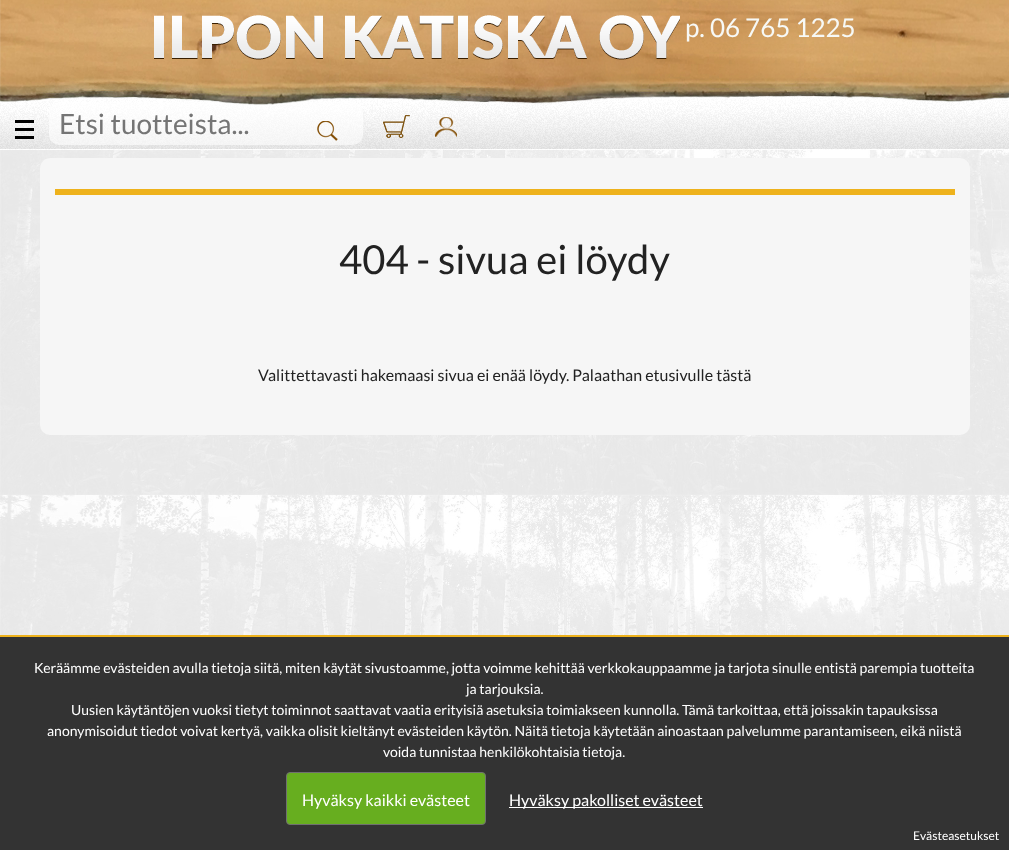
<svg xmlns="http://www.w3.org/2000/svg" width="1009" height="850">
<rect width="100%" height="100%" fill="#fff"/>
<image x="0" y="0" width="1009" height="635" href="media/1.png"/>
<image x="0" y="97" width="1009" height="53" href="media/4.png"/>
<rect x="49" y="102" width="314" height="43" rx="10" fill="#ffffff99"/>
<image x="0" y="0" width="1009" height="105" href="media/2.png"/>
<image x="154" y="15" width="526" height="45" href="media/3.png"/>
<text x="685" y="37" style="font-family:Lato;font-size:26px;fill:#f7f9f6">p. 06 765 1225</text>
<image x="15" y="120" width="19" height="19" href="media/5.png"/>
<text x="59" y="134" style="font-family:Lato;font-size:28px;fill:#757575">Etsi tuotteista...</text>
<image x="317" y="121" width="21" height="20" href="media/6.png"/>
<image x="383" y="115" width="27" height="23" href="media/7.png"/>
<image x="435" y="117" width="22" height="20" href="media/8.png"/>
<rect x="40" y="158" width="930" height="277" rx="10" fill="#f6f6f6"/>
<rect x="55" y="189" width="900" height="6" fill="#eeb21c"/>
<text x="339" y="274" style="font-family:Lato;font-size:40px;fill:#222">404 - sivua ei löydy</text>
<text x="258" y="381" style="font-family:Lato;font-size:16px;fill:#222">Valittettavasti hakemaasi sivua ei enää löydy. Palaathan etusivulle tästä</text>
<rect y="637" width="1009" height="213" fill="#333"/>
<rect y="635" width="1009" height="2" fill="#eeb21c"/>
<text x="34" y="673" style="font-family:Lato;font-size:14px;fill:#fff">Keräämme evästeiden avulla tietoja siitä, miten käytät sivustoamme, jotta voimme kehittää verkkokauppaamme ja tarjota sinulle entistä parempia tuotteita</text>
<text x="466" y="694" style="font-family:Lato;font-size:14px;fill:#fff">ja tarjouksia.</text>
<text x="71" y="715" style="font-family:Lato;font-size:14px;fill:#fff">Uusien käytäntöjen vuoksi tietyt toiminnot saattavat vaatia erityisiä asetuksia toimiakseen kunnolla. Tämä tarkoittaa, että joissakin tapauksissa</text>
<text x="47" y="736" style="font-family:Lato;font-size:14px;fill:#fff">anonymisoidut tiedot voivat kertyä, vaikka olisit kieltänyt evästeiden käytön. Näitä tietoja käytetään ainoastaan palvelumme parantamiseen, eikä niistä</text>
<text x="383" y="757" style="font-family:Lato;font-size:14px;fill:#fff">voida tunnistaa henkilökohtaisia tietoja.</text>
<rect x="286.5" y="772.5" width="199" height="52" rx="3.5" fill="#67ae1f" stroke="#707070"/>
<text x="302" y="806" style="font-family:Lato;font-size:16px;fill:#fff">Hyväksy kaikki evästeet</text>
<rect x="509" y="807" width="194" height="1" fill="#fff"/>
<text x="509" y="806" style="font-family:Lato;font-size:16px;fill:#fff">Hyväksy pakolliset evästeet</text>
<text x="913" y="840" style="font-family:Lato;font-size:12px;fill:#fff">Evästeasetukset</text>
</svg>
